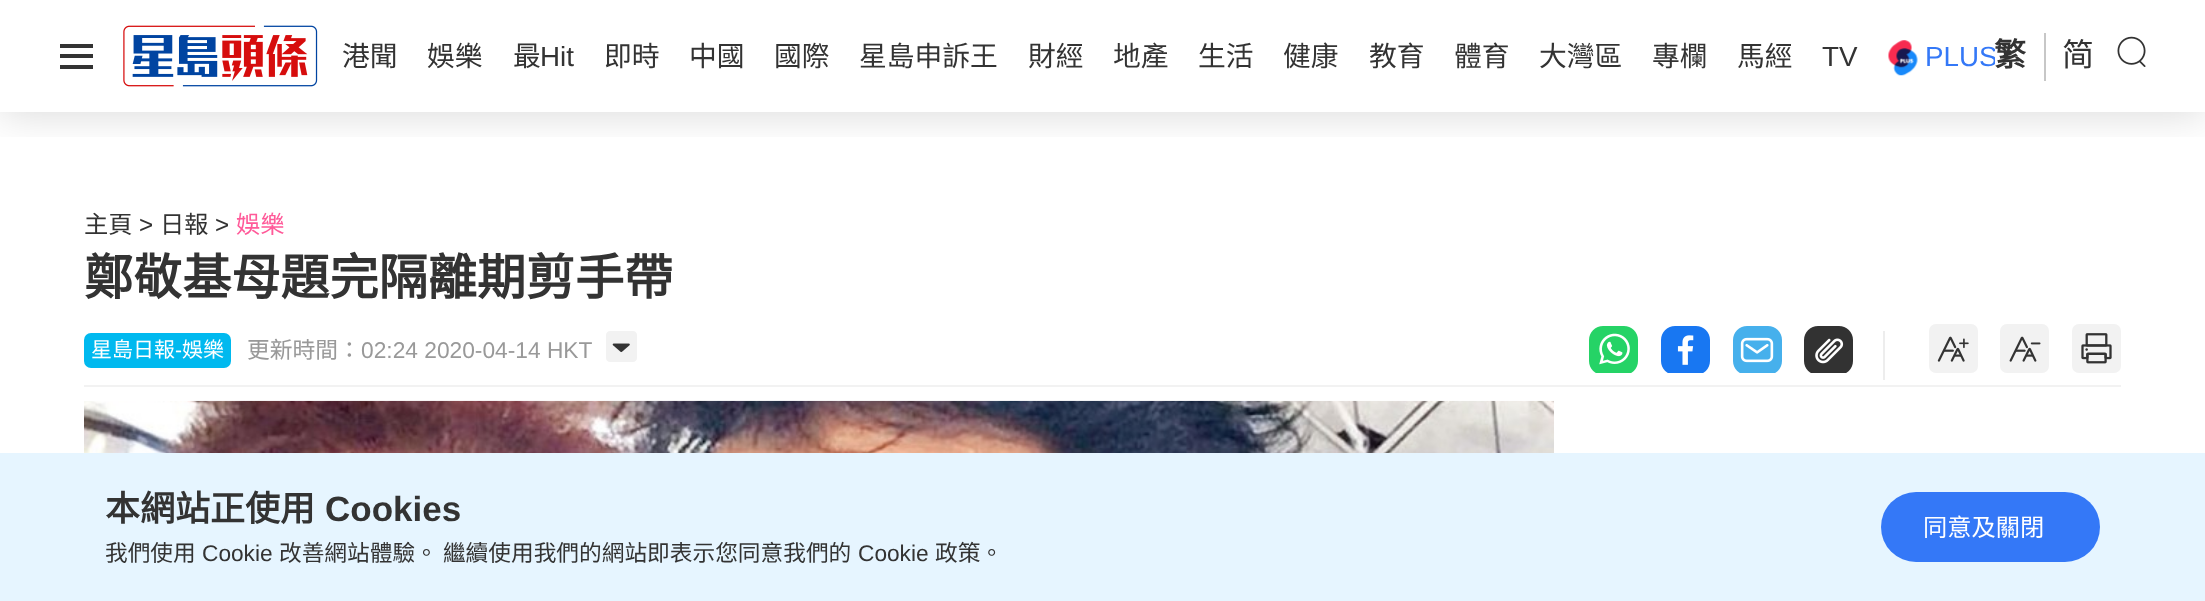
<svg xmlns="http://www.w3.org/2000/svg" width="2205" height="601">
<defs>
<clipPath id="clip1"><rect x="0" y="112" width="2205" height="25"/></clipPath>
<clipPath id="clip2"><rect x="343" y="33" width="1652" height="48"/></clipPath>
</defs>
<rect width="100%" height="100%" fill="#fff"/>
<g clip-path="url(#clip1)">
<rect y="2" width="2205" height="112" fill="#00000026" filter="blur(21px)"/>
</g>
<rect x="60" y="44" width="33" height="4" fill="#333"/>
<rect x="60" y="54" width="33" height="4" fill="#333"/>
<rect x="60" y="65" width="33" height="4" fill="#333"/>
<image x="123" y="25" width="195" height="62" href="media/1.png"/>
<text x="342" y="66" style="font-family:Noto Sans CJK HK;font-size:27.75px;fill:#333">港聞</text>
<text x="427" y="66" style="font-family:Noto Sans CJK HK;font-size:27.75px;fill:#333">娛樂</text>
<text x="513" y="66" style="font-family:Noto Sans CJK HK;font-size:27.75px;fill:#333">最</text>
<text x="540" y="66" style="font-family:Liberation Sans;font-size:27.75px;fill:#333">Hit</text>
<text x="604" y="66" style="font-family:Noto Sans CJK HK;font-size:27.75px;fill:#333">即時</text>
<text x="689" y="66" style="font-family:Noto Sans CJK HK;font-size:27.75px;fill:#333">中國</text>
<text x="774" y="66" style="font-family:Noto Sans CJK HK;font-size:27.75px;fill:#333">國際</text>
<text x="859" y="66" style="font-family:Noto Sans CJK HK;font-size:27.75px;fill:#333">星島申訴王</text>
<text x="1028" y="66" style="font-family:Noto Sans CJK HK;font-size:27.75px;fill:#333">財經</text>
<text x="1113" y="66" style="font-family:Noto Sans CJK HK;font-size:27.75px;fill:#333">地產</text>
<text x="1198" y="66" style="font-family:Noto Sans CJK HK;font-size:27.75px;fill:#333">生活</text>
<text x="1283" y="66" style="font-family:Noto Sans CJK HK;font-size:27.75px;fill:#333">健康</text>
<text x="1369" y="66" style="font-family:Noto Sans CJK HK;font-size:27.75px;fill:#333">教育</text>
<text x="1454" y="66" style="font-family:Noto Sans CJK HK;font-size:27.75px;fill:#333">體育</text>
<text x="1539" y="66" style="font-family:Noto Sans CJK HK;font-size:27.75px;fill:#333">大灣區</text>
<text x="1652" y="66" style="font-family:Noto Sans CJK HK;font-size:27.75px;fill:#333">專欄</text>
<text x="1737" y="66" style="font-family:Noto Sans CJK HK;font-size:27.75px;fill:#333">馬經</text>
<text x="1822" y="66" style="font-family:Liberation Sans;font-size:27.75px;fill:#333">TV</text>
<image x="1888" y="40" width="30" height="36" href="media/2.png"/>
<g clip-path="url(#clip2)">
<text x="1925" y="66" style="font-family:Liberation Sans;font-size:27.75px;fill:#3478f7">PLUS</text>
</g>
<rect x="2044" y="33" width="2" height="48" fill="#c7c7c7"/>
<text x="1994" y="66" style="font-family:Noto Sans CJK HK;font-size:32px;font-weight:bold;fill:#333">繁</text>
<text x="2062" y="66" style="font-family:Noto Sans CJK HK;font-size:32px;fill:#333">简</text>
<image x="2117" y="36" width="29" height="31" href="media/3.png"/>
<text x="84" y="233" style="font-family:Noto Sans CJK HK;font-size:24.25px;fill:#333">主頁</text>
<text x="139" y="233" style="font-family:Liberation Sans;font-size:24.25px;fill:#333">&gt;</text>
<text x="160" y="233" style="font-family:Noto Sans CJK HK;font-size:24.25px;fill:#333">日報</text>
<text x="215" y="233" style="font-family:Liberation Sans;font-size:24.25px;fill:#333">&gt;</text>
<text x="236" y="233" style="font-family:Noto Sans CJK HK;font-size:24.25px;fill:#ff5a99">娛樂</text>
<text x="84" y="295" style="font-family:Noto Sans CJK HK;font-size:49.1px;font-weight:bold;fill:#333">鄭敬基母題完隔離期剪手帶</text>
<rect x="84" y="385" width="2037" height="2" fill="#f2f2f2"/>
<rect x="84" y="333" width="147" height="35" rx="7" fill="#00b9ef"/>
<text x="91" y="357" style="font-family:Noto Sans CJK HK;font-size:21px;fill:#fff">星島日報</text>
<text x="175" y="357" style="font-family:Liberation Sans;font-size:21px;fill:#fff">-</text>
<text x="182" y="357" style="font-family:Noto Sans CJK HK;font-size:21px;fill:#fff">娛樂</text>
<text x="247" y="358" style="font-family:Noto Sans CJK HK;font-size:22.75px;fill:#999">更新時間：</text>
<text x="361" y="358" style="font-family:Liberation Sans;font-size:22.75px;fill:#999">02:24 2020-04-14 HKT</text>
<image x="606" y="331" width="31" height="31" href="media/4.png"/>
<image x="1589" y="326" width="49" height="47" href="media/5.png"/>
<image x="1661" y="326" width="49" height="47" href="media/6.png"/>
<image x="1733" y="326" width="49" height="47" href="media/7.png"/>
<image x="1804" y="326" width="49" height="47" href="media/8.png"/>
<rect x="1883" y="331" width="2" height="49" fill="#ededed"/>
<rect x="1929" y="324" width="49" height="49" rx="7" fill="#f2f2f2"/>
<image x="1937" y="336" width="32" height="26" href="media/9.png"/>
<rect x="2000" y="324" width="49" height="49" rx="7" fill="#f2f2f2"/>
<image x="2009" y="336" width="32" height="26" href="media/10.png"/>
<rect x="2072" y="324" width="49" height="49" rx="7" fill="#f2f2f2"/>
<image x="2081" y="333" width="31" height="31" href="media/11.png"/>
<image x="84" y="400" width="1470" height="53" href="media/12.png"/>
<rect y="453" width="2205" height="148" fill="#e6f5ff"/>
<text x="105" y="521" style="font-family:Noto Sans CJK HK;font-size:35px;font-weight:bold;fill:#333">本網站正使用</text>
<text x="325" y="521" style="font-family:Liberation Sans;font-size:35px;font-weight:bold;fill:#333">Cookies</text>
<text x="105" y="561" style="font-family:Noto Sans CJK HK;font-size:22.7px;fill:#333">我們使用</text>
<text x="202" y="561" style="font-family:Liberation Sans;font-size:22.7px;fill:#333">Cookie</text>
<text x="279" y="561" style="font-family:Noto Sans CJK HK;font-size:22.7px;fill:#333">改善網站體驗。 繼續使用我們的網站即表示您同意我們的</text>
<text x="858" y="561" style="font-family:Liberation Sans;font-size:22.7px;fill:#333">Cookie</text>
<text x="935" y="561" style="font-family:Noto Sans CJK HK;font-size:22.7px;fill:#333">政策。</text>
<rect x="1881" y="492" width="219" height="70" rx="35" fill="#3478f7"/>
<text x="1923" y="536" style="font-family:Noto Sans CJK HK;font-size:24.25px;fill:#fff">同意及關閉</text>
</svg>
